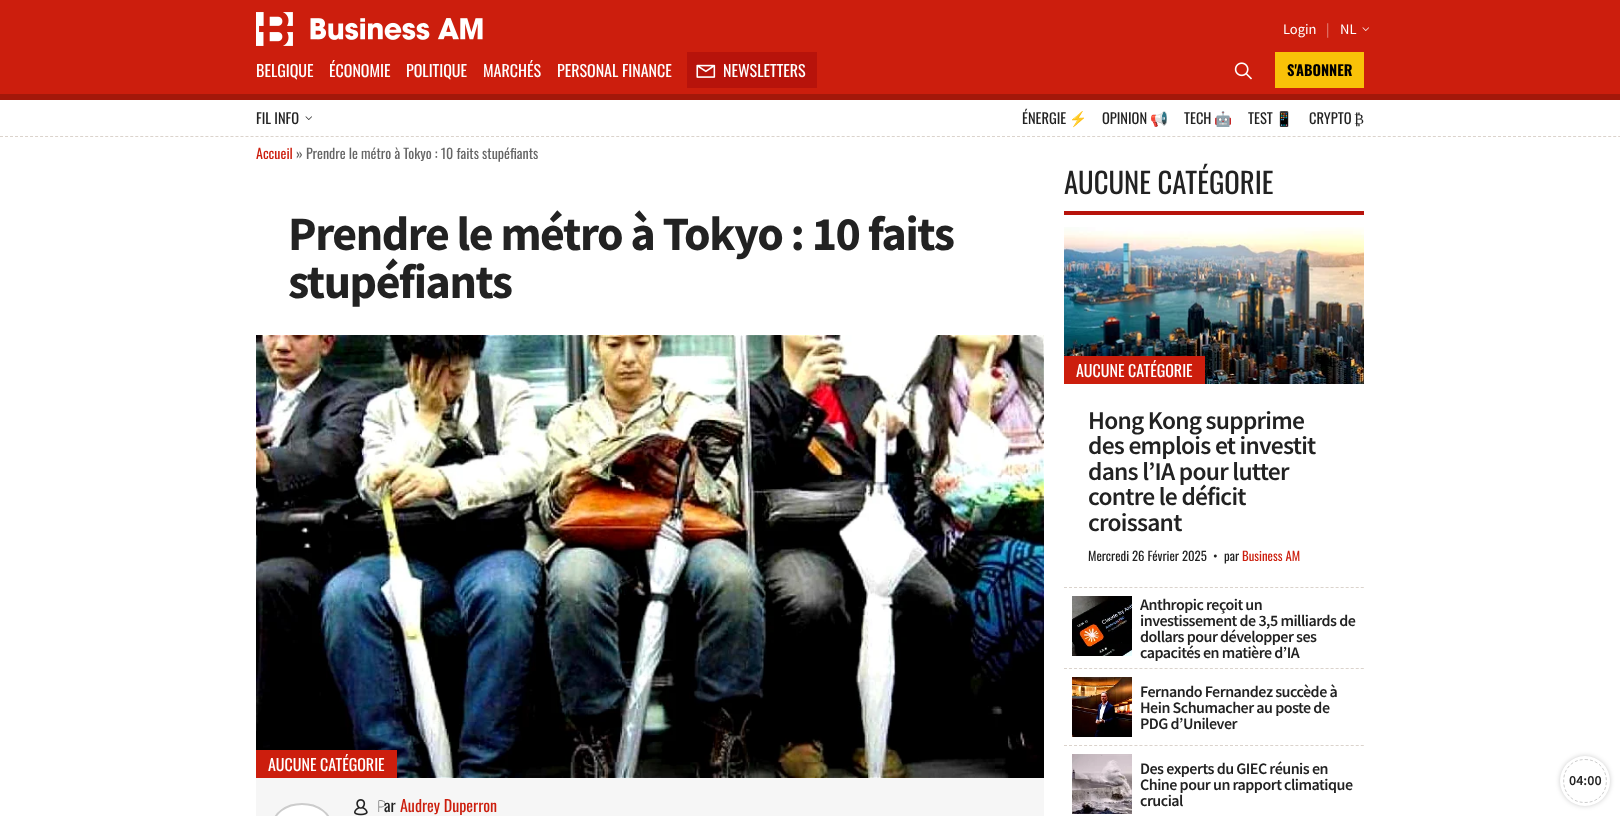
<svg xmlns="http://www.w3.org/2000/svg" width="1620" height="816">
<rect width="100%" height="100%" fill="#fff"/>
<rect width="1620" height="94" fill="#cc1e0d"/>
<image x="256" y="12" width="227" height="34" href="media/1.png"/>
<text x="1283" y="34" style="font-family:Source Sans Pro;font-size:14.5px;fill:#fff">Login</text>
<text x="1326" y="34" style="font-family:Source Sans Pro;font-size:14.5px;fill:#e68f86">|</text>
<text x="1340" y="34" style="font-family:Source Sans Pro;font-size:14.5px;fill:#fff">NL</text>
<image x="1362" y="27" width="7" height="4" href="media/2.png"/>
<text x="256" y="77" style="font-family:Oswald;font-size:16px;fill:#fff">BELGIQUE</text>
<text x="329" y="77" style="font-family:Oswald;font-size:16px;fill:#fff">ÉCONOMIE</text>
<text x="406" y="77" style="font-family:Oswald;font-size:16px;fill:#fff">POLITIQUE</text>
<text x="483" y="77" style="font-family:Oswald;font-size:16px;fill:#fff">MARCHÉS</text>
<text x="557" y="77" style="font-family:Oswald;font-size:16px;fill:#fff">PERSONAL FINANCE</text>
<rect x="687" y="52" width="130" height="36" fill="#b7130b"/>
<image x="696" y="64" width="20" height="14" href="media/3.png"/>
<text x="723" y="77" style="font-family:Oswald;font-size:16px;fill:#fff">NEWSLETTERS</text>
<image x="1234" y="62" width="18" height="18" href="media/4.png"/>
<rect x="1275" y="52" width="89" height="36" fill="#f9c208"/>
<text x="1287" y="76" style="font-family:Oswald;font-size:14.5px;font-weight:bold;fill:#000">S'ABONNER</text>
<rect y="94" width="1620" height="6" fill="#a3180a"/>
<text x="256" y="124" style="font-family:Oswald;font-size:14.5px;fill:#222">FIL INFO</text>
<image x="305" y="116" width="7" height="4" href="media/5.png"/>
<text x="1022" y="124" style="font-family:Oswald;font-size:14.5px;fill:#222">ÉNERGIE</text>
<text x="1069" y="124" style="font-family:Noto Color Emoji;font-size:14.5px;fill:#222">⚡</text>
<text x="1102" y="124" style="font-family:Oswald;font-size:14.5px;fill:#222">OPINION</text>
<text x="1150" y="124" style="font-family:Noto Color Emoji;font-size:14.5px;fill:#222">📢</text>
<text x="1184" y="124" style="font-family:Oswald;font-size:14.5px;fill:#222">TECH</text>
<text x="1214" y="124" style="font-family:Noto Color Emoji;font-size:14.5px;fill:#222">🤖</text>
<text x="1248" y="124" style="font-family:Oswald;font-size:14.5px;fill:#222">TEST</text>
<text x="1275" y="124" style="font-family:Noto Color Emoji;font-size:14.5px;fill:#222">📱</text>
<text x="1309" y="124" style="font-family:Oswald;font-size:14.5px;fill:#222">CRYPTO</text>
<text x="1354" y="124" style="font-family:Liberation Serif;font-size:14.5px;fill:#222">₿</text>
<path d="M0 136.5h1620" fill="none" stroke="#dbd3cc" stroke-dasharray="3 2.01"/>
<text x="256" y="159" style="font-family:Oswald;font-size:14px;fill:#cc1e0d">Accueil</text>
<text x="296" y="159" style="font-family:Oswald;font-size:14px;fill:#666">» Prendre le métro à Tokyo : 10 faits stupéfiants</text>
<text x="288" y="250" style="font-family:Source Sans Pro;font-size:48px;font-weight:bold;letter-spacing:-1.45px;fill:#222">Prendre le métro à Tokyo : 10 faits</text>
<text x="288" y="298" style="font-family:Source Sans Pro;font-size:48px;font-weight:bold;letter-spacing:-1.45px;fill:#222">stupéfiants</text>
<image x="256" y="335" width="788" height="443" href="media/6.png"/>
<rect x="256" y="750" width="141" height="28" fill="#cc1e0d"/>
<text x="268" y="771" style="font-family:Oswald;font-size:16px;fill:#fff">AUCUNE CATÉGORIE</text>
<rect x="256" y="778" width="788" height="38" fill="#f6f6f6"/>
<rect x="272" y="803" width="60" height="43" rx="30" fill="#fff"/>
<rect x="273" y="804" width="58" height="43" rx="29" fill="none" stroke="#00000033" stroke-width="2"/>
<image x="354" y="799" width="14" height="17" href="media/7.png"/>
<text x="377" y="812" style="font-family:Noto Sans;font-size:16px;font-weight:100;fill:#222">P</text>
<text x="384" y="812" style="font-family:Oswald;font-size:16px;fill:#222">ar</text>
<text x="400" y="812" style="font-family:Oswald;font-size:16px;fill:#cc1e0d">Audrey Duperron</text>
<rect x="1064" y="211" width="300" height="4" fill="#b7130b"/>
<text x="1064" y="194" style="font-family:Oswald;font-size:28.75px;fill:#222">AUCUNE CATÉGORIE</text>
<image x="1064" y="227" width="300" height="157" href="media/8.png"/>
<rect x="1064" y="356" width="141" height="28" fill="#cc1e0d"/>
<text x="1076" y="377" style="font-family:Oswald;font-size:16px;fill:#fff">AUCUNE CATÉGORIE</text>
<text x="1088" y="429" style="font-family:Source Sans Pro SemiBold;font-size:25.5px;font-weight:600;letter-spacing:-0.75px;fill:#222">Hong Kong supprime</text>
<text x="1088" y="454" style="font-family:Source Sans Pro SemiBold;font-size:25.5px;font-weight:600;letter-spacing:-0.75px;fill:#222">des emplois et investit</text>
<text x="1088" y="480" style="font-family:Source Sans Pro SemiBold;font-size:25.5px;font-weight:600;letter-spacing:-0.75px;fill:#222">dans l’IA pour lutter</text>
<text x="1088" y="505" style="font-family:Source Sans Pro SemiBold;font-size:25.5px;font-weight:600;letter-spacing:-0.75px;fill:#222">contre le déficit</text>
<text x="1088" y="531" style="font-family:Source Sans Pro SemiBold;font-size:25.5px;font-weight:600;letter-spacing:-0.75px;fill:#222">croissant</text>
<text x="1088" y="561" style="font-family:Oswald;font-size:12.75px;fill:#222">Mercredi 26 Février 2025</text>
<text x="1213" y="561" style="font-family:Oswald;font-size:12.75px;fill:#222">•</text>
<text x="1224" y="561" style="font-family:Oswald;font-size:12.75px;fill:#222">par</text>
<text x="1242" y="561" style="font-family:Oswald;font-size:12.75px;fill:#cc1e0d">Business AM</text>
<path d="M1064 587.5h300" fill="none" stroke="#dbd3cc" stroke-dasharray="3 2.03"/>
<image x="1072" y="596" width="60" height="60" href="media/9.png"/>
<text x="1140" y="610" style="font-family:Source Sans Pro SemiBold;font-size:16px;font-weight:600;letter-spacing:-0.5px;fill:#222">Anthropic reçoit un</text>
<text x="1140" y="626" style="font-family:Source Sans Pro SemiBold;font-size:16px;font-weight:600;letter-spacing:-0.5px;fill:#222">investissement de 3,5 milliards de</text>
<text x="1140" y="642" style="font-family:Source Sans Pro SemiBold;font-size:16px;font-weight:600;letter-spacing:-0.5px;fill:#222">dollars pour développer ses</text>
<text x="1140" y="658" style="font-family:Source Sans Pro SemiBold;font-size:16px;font-weight:600;letter-spacing:-0.5px;fill:#222">capacités en matière d’IA</text>
<path d="M1064 668.5h300" fill="none" stroke="#dbd3cc" stroke-dasharray="3 2.03"/>
<image x="1072" y="677" width="60" height="60" href="media/10.png"/>
<text x="1140" y="697" style="font-family:Source Sans Pro SemiBold;font-size:16px;font-weight:600;letter-spacing:-0.5px;fill:#222">Fernando Fernandez succède à</text>
<text x="1140" y="713" style="font-family:Source Sans Pro SemiBold;font-size:16px;font-weight:600;letter-spacing:-0.5px;fill:#222">Hein Schumacher au poste de</text>
<text x="1140" y="729" style="font-family:Source Sans Pro SemiBold;font-size:16px;font-weight:600;letter-spacing:-0.5px;fill:#222">PDG d’Unilever</text>
<path d="M1064 745.5h300" fill="none" stroke="#dbd3cc" stroke-dasharray="3 2.03"/>
<image x="1072" y="754" width="60" height="60" href="media/11.png"/>
<text x="1140" y="774" style="font-family:Source Sans Pro SemiBold;font-size:16px;font-weight:600;letter-spacing:-0.5px;fill:#222">Des experts du GIEC réunis en</text>
<text x="1140" y="790" style="font-family:Source Sans Pro SemiBold;font-size:16px;font-weight:600;letter-spacing:-0.5px;fill:#222">Chine pour un rapport climatique</text>
<text x="1140" y="806" style="font-family:Source Sans Pro SemiBold;font-size:16px;font-weight:600;letter-spacing:-0.5px;fill:#222">crucial</text>
<rect x="1560" y="756" width="50" height="50" rx="25" fill="#00000033" filter="blur(2.5px)"/>
<circle cx="1585" cy="781" r="25" fill="#fff"/>
<path d="M1585 759.5c28.5 0 28.5 43 0 43c-28.5 0-28.5-43 0-43z" fill="none" stroke="#ccc" stroke-dasharray="3 2"/>
<text x="1569" y="785" style="font-family:Source Sans Pro SemiBold;font-size:14px;font-weight:600;fill:#222">04:00</text>
</svg>
